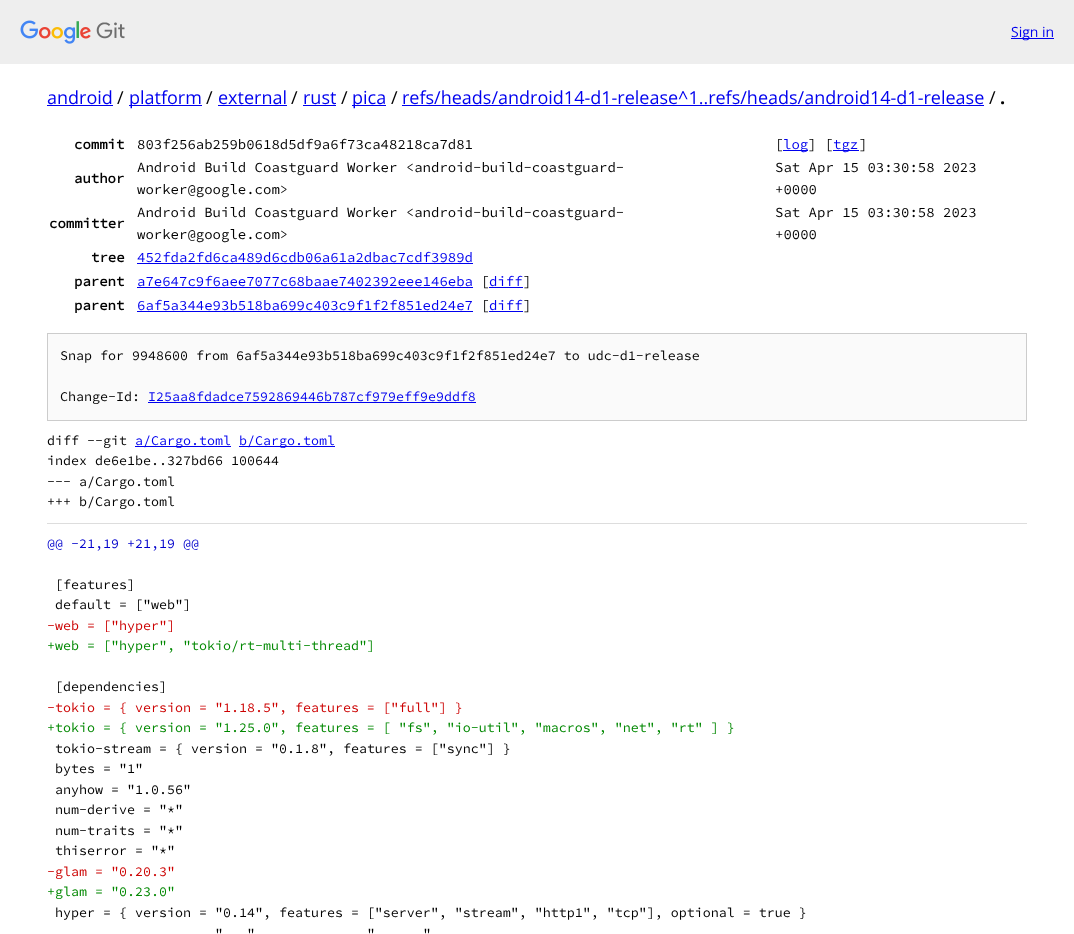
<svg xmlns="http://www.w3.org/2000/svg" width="1074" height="934">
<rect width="100%" height="100%" fill="#fff"/>
<rect width="1074" height="64" fill="#eee"/>
<image x="20" y="20" width="105" height="24" href="media/1.png"/>
<rect x="1011" y="38" width="43" height="1" fill="#00e"/>
<text x="1011" y="37" style="font-family:Open Sans;font-size:14px;fill:#00e">Sign in</text>
<text x="47" y="104" style="font-family:Open Sans;font-size:18px;fill:#00e">android</text>
<rect x="47" y="105" width="66" height="1" fill="#00e"/>
<text x="117" y="104" style="font-family:Open Sans;font-size:18px;fill:#000">/</text>
<rect x="129" y="105" width="73" height="1" fill="#00e"/>
<text x="129" y="104" style="font-family:Open Sans;font-size:18px;fill:#00e">platform</text>
<text x="206" y="104" style="font-family:Open Sans;font-size:18px;fill:#000">/</text>
<text x="218" y="104" style="font-family:Open Sans;font-size:18px;fill:#00e">external</text>
<rect x="218" y="105" width="69" height="1" fill="#00e"/>
<text x="291" y="104" style="font-family:Open Sans;font-size:18px;fill:#000">/</text>
<text x="303" y="104" style="font-family:Open Sans;font-size:18px;fill:#00e">rust</text>
<rect x="303" y="105" width="33" height="1" fill="#00e"/>
<text x="341" y="104" style="font-family:Open Sans;font-size:18px;fill:#000">/</text>
<rect x="352" y="105" width="34" height="1" fill="#00e"/>
<text x="352" y="104" style="font-family:Open Sans;font-size:18px;fill:#00e">pica</text>
<text x="391" y="104" style="font-family:Open Sans;font-size:18px;fill:#000">/</text>
<text x="402" y="104" style="font-family:Open Sans;font-size:18px;fill:#00e">refs/heads/android14-d1-release^1..refs/heads/android14-d1-release</text>
<rect x="402" y="105" width="582" height="1" fill="#00e"/>
<text x="989" y="104" style="font-family:Open Sans;font-size:18px;fill:#000">/</text>
<text x="1000" y="104" style="font-family:Open Sans;font-size:18px;font-weight:bold;fill:#000">.</text>
<text x="74" y="149" style="font-family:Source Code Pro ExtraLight;font-size:14px;font-weight:bold;fill:#000">commit</text>
<text x="137" y="149" style="font-family:Source Code Pro ExtraLight;font-size:14px;font-weight:200;fill:#000">803f256ab259b0618d5df9a6f73ca48218ca7d81</text>
<text x="775" y="149" style="font-family:Source Code Pro ExtraLight;font-size:14px;font-weight:200;fill:#000">[</text>
<rect x="783" y="150" width="25" height="1" fill="#00e"/>
<text x="783" y="149" style="font-family:Source Code Pro ExtraLight;font-size:14px;font-weight:200;fill:#00e">log</text>
<text x="808" y="149" style="font-family:Source Code Pro ExtraLight;font-size:14px;font-weight:200;fill:#000">] [</text>
<rect x="833" y="150" width="26" height="1" fill="#00e"/>
<text x="833" y="149" style="font-family:Source Code Pro ExtraLight;font-size:14px;font-weight:200;fill:#00e">tgz</text>
<text x="859" y="149" style="font-family:Source Code Pro ExtraLight;font-size:14px;font-weight:200;fill:#000">]</text>
<text x="74" y="183" style="font-family:Source Code Pro ExtraLight;font-size:14px;font-weight:bold;fill:#000">author</text>
<text x="137" y="172" style="font-family:Source Code Pro ExtraLight;font-size:14px;font-weight:200;fill:#000">Android Build Coastguard Worker &lt;android-build-coastguard-</text>
<text x="137" y="194" style="font-family:Source Code Pro ExtraLight;font-size:14px;font-weight:200;fill:#000">worker@google.com&gt;</text>
<text x="775" y="172" style="font-family:Source Code Pro ExtraLight;font-size:14px;font-weight:200;fill:#000">Sat Apr 15 03:30:58 2023</text>
<text x="775" y="194" style="font-family:Source Code Pro ExtraLight;font-size:14px;font-weight:200;fill:#000">+0000</text>
<text x="49" y="228" style="font-family:Source Code Pro ExtraLight;font-size:14px;font-weight:bold;fill:#000">committer</text>
<text x="137" y="217" style="font-family:Source Code Pro ExtraLight;font-size:14px;font-weight:200;fill:#000">Android Build Coastguard Worker &lt;android-build-coastguard-</text>
<text x="137" y="239" style="font-family:Source Code Pro ExtraLight;font-size:14px;font-weight:200;fill:#000">worker@google.com&gt;</text>
<text x="775" y="217" style="font-family:Source Code Pro ExtraLight;font-size:14px;font-weight:200;fill:#000">Sat Apr 15 03:30:58 2023</text>
<text x="775" y="239" style="font-family:Source Code Pro ExtraLight;font-size:14px;font-weight:200;fill:#000">+0000</text>
<text x="91" y="262" style="font-family:Source Code Pro ExtraLight;font-size:14px;font-weight:bold;fill:#000">tree</text>
<text x="137" y="262" style="font-family:Source Code Pro ExtraLight;font-size:14px;font-weight:200;fill:#00e">452fda2fd6ca489d6cdb06a61a2dbac7cdf3989d</text>
<rect x="137" y="263" width="336" height="1" fill="#00e"/>
<text x="74" y="286" style="font-family:Source Code Pro ExtraLight;font-size:14px;font-weight:bold;fill:#000">parent</text>
<text x="137" y="286" style="font-family:Source Code Pro ExtraLight;font-size:14px;font-weight:200;fill:#00e">a7e647c9f6aee7077c68baae7402392eee146eba</text>
<rect x="137" y="287" width="336" height="1" fill="#00e"/>
<text x="481" y="286" style="font-family:Source Code Pro ExtraLight;font-size:14px;font-weight:200;fill:#000">[</text>
<rect x="489" y="287" width="34" height="1" fill="#00e"/>
<text x="489" y="286" style="font-family:Source Code Pro ExtraLight;font-size:14px;font-weight:200;fill:#00e">diff</text>
<text x="523" y="286" style="font-family:Source Code Pro ExtraLight;font-size:14px;font-weight:200;fill:#000">]</text>
<text x="74" y="310" style="font-family:Source Code Pro ExtraLight;font-size:14px;font-weight:bold;fill:#000">parent</text>
<text x="137" y="310" style="font-family:Source Code Pro ExtraLight;font-size:14px;font-weight:200;fill:#00e">6af5a344e93b518ba699c403c9f1f2f851ed24e7</text>
<rect x="137" y="311" width="336" height="1" fill="#00e"/>
<text x="481" y="310" style="font-family:Source Code Pro ExtraLight;font-size:14px;font-weight:200;fill:#000">[</text>
<rect x="489" y="311" width="34" height="1" fill="#00e"/>
<text x="489" y="310" style="font-family:Source Code Pro ExtraLight;font-size:14px;font-weight:200;fill:#00e">diff</text>
<text x="523" y="310" style="font-family:Source Code Pro ExtraLight;font-size:14px;font-weight:200;fill:#000">]</text>
<rect x="47.5" y="333.5" width="979" height="87" fill="#fafafa" stroke="#ccc"/>
<text x="60" y="360" style="font-family:Source Code Pro ExtraLight;font-size:13.33px;font-weight:200;fill:#000">Snap for 9948600 from 6af5a344e93b518ba699c403c9f1f2f851ed24e7 to udc-d1-release</text>
<text x="60" y="401" style="font-family:Source Code Pro ExtraLight;font-size:13.33px;font-weight:200;fill:#000">Change-Id:</text>
<text x="148" y="401" style="font-family:Source Code Pro ExtraLight;font-size:13.33px;font-weight:200;fill:#00e">I25aa8fdadce7592869446b787cf979eff9e9ddf8</text>
<rect x="148" y="402" width="328" height="1" fill="#00e"/>
<text x="47" y="445" style="font-family:Source Code Pro ExtraLight;font-size:13.33px;font-weight:200;fill:#000">diff --git</text>
<rect x="135" y="446" width="96" height="1" fill="#00e"/>
<text x="135" y="445" style="font-family:Source Code Pro ExtraLight;font-size:13.33px;font-weight:200;fill:#00e">a/Cargo.toml</text>
<rect x="239" y="446" width="96" height="1" fill="#00e"/>
<text x="239" y="445" style="font-family:Source Code Pro ExtraLight;font-size:13.33px;font-weight:200;fill:#00e">b/Cargo.toml</text>
<text x="47" y="465" style="font-family:Source Code Pro ExtraLight;font-size:13.33px;font-weight:200;fill:#000">index de6e1be..327bd66 100644</text>
<text x="47" y="486" style="font-family:Source Code Pro ExtraLight;font-size:13.33px;font-weight:200;fill:#000">--- a/Cargo.toml</text>
<text x="47" y="506" style="font-family:Source Code Pro ExtraLight;font-size:13.33px;font-weight:200;fill:#000">+++ b/Cargo.toml</text>
<rect x="47" y="523" width="980" height="1" fill="#ddd"/>
<text x="47" y="548" style="font-family:Source Code Pro ExtraLight;font-size:13.33px;font-weight:200;fill:#00c">@@ -21,19 +21,19 @@</text>
<text x="55" y="589" style="font-family:Source Code Pro ExtraLight;font-size:13.33px;font-weight:200;fill:#000">[features]</text>
<text x="55" y="609" style="font-family:Source Code Pro ExtraLight;font-size:13.33px;font-weight:200;fill:#000">default = ["web"]</text>
<text x="47" y="630" style="font-family:Source Code Pro ExtraLight;font-size:13.33px;font-weight:200;fill:#c00">-web = ["hyper"]</text>
<text x="47" y="650" style="font-family:Source Code Pro ExtraLight;font-size:13.33px;font-weight:200;fill:#080">+web = ["hyper", "tokio/rt-multi-thread"]</text>
<text x="55" y="691" style="font-family:Source Code Pro ExtraLight;font-size:13.33px;font-weight:200;fill:#000">[dependencies]</text>
<text x="47" y="712" style="font-family:Source Code Pro ExtraLight;font-size:13.33px;font-weight:200;fill:#c00">-tokio = { version = "1.18.5", features = ["full"] }</text>
<text x="47" y="732" style="font-family:Source Code Pro ExtraLight;font-size:13.33px;font-weight:200;fill:#080">+tokio = { version = "1.25.0", features = [ "fs", "io-util", "macros", "net", "rt" ] }</text>
<text x="55" y="753" style="font-family:Source Code Pro ExtraLight;font-size:13.33px;font-weight:200;fill:#000">tokio-stream = { version = "0.1.8", features = ["sync"] }</text>
<text x="55" y="773" style="font-family:Source Code Pro ExtraLight;font-size:13.33px;font-weight:200;fill:#000">bytes = "1"</text>
<text x="55" y="794" style="font-family:Source Code Pro ExtraLight;font-size:13.33px;font-weight:200;fill:#000">anyhow = "1.0.56"</text>
<text x="55" y="814" style="font-family:Source Code Pro ExtraLight;font-size:13.33px;font-weight:200;fill:#000">num-derive = "*"</text>
<text x="55" y="835" style="font-family:Source Code Pro ExtraLight;font-size:13.33px;font-weight:200;fill:#000">num-traits = "*"</text>
<text x="55" y="855" style="font-family:Source Code Pro ExtraLight;font-size:13.33px;font-weight:200;fill:#000">thiserror = "*"</text>
<text x="47" y="876" style="font-family:Source Code Pro ExtraLight;font-size:13.33px;font-weight:200;fill:#c00">-glam = "0.20.3"</text>
<text x="47" y="896" style="font-family:Source Code Pro ExtraLight;font-size:13.33px;font-weight:200;fill:#080">+glam = "0.23.0"</text>
<text x="55" y="917" style="font-family:Source Code Pro ExtraLight;font-size:13.33px;font-weight:200;fill:#000">hyper = { version = "0.14", features = ["server", "stream", "http1", "tcp"], optional = true }</text>
<text x="215" y="938" style="font-family:Source Code Pro ExtraLight;font-size:13.33px;font-weight:200;fill:#000">"</text>
<text x="247" y="938" style="font-family:Source Code Pro ExtraLight;font-size:13.33px;font-weight:200;fill:#000">"</text>
<text x="367" y="938" style="font-family:Source Code Pro ExtraLight;font-size:13.33px;font-weight:200;fill:#000">"</text>
<text x="423" y="938" style="font-family:Source Code Pro ExtraLight;font-size:13.33px;font-weight:200;fill:#000">"</text>
</svg>
